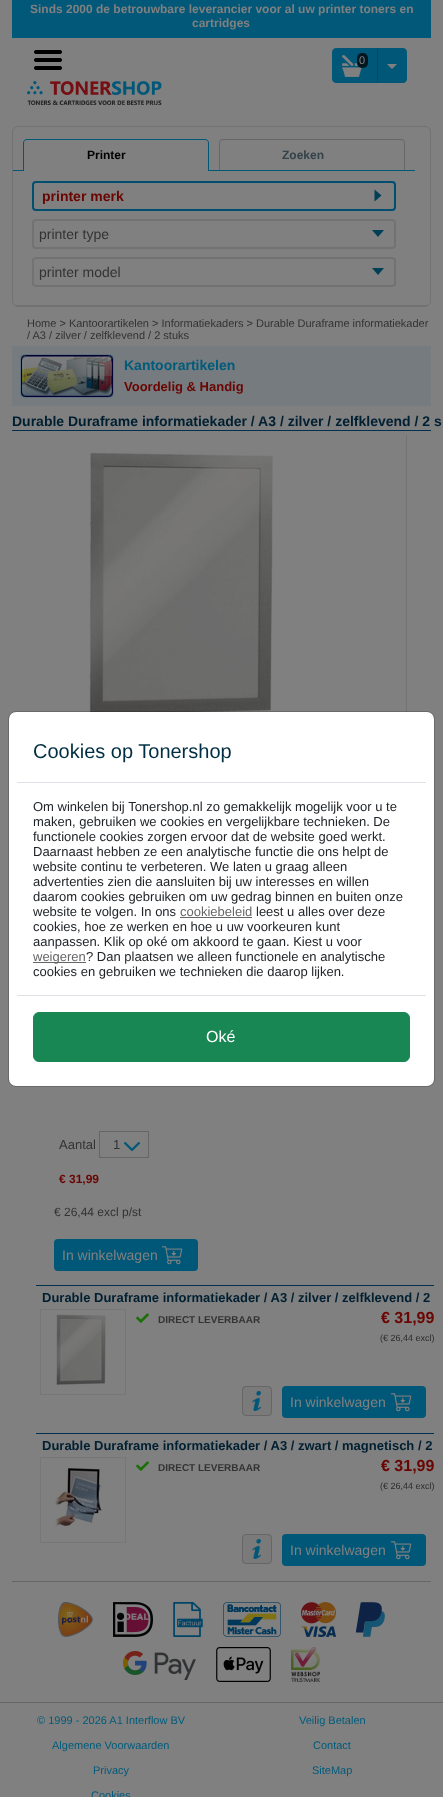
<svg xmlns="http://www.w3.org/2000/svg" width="443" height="1797">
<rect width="100%" height="100%" fill="#808080"/>
<rect x="12" width="419" height="38" fill="#025878"/>
<text x="30" y="13" style="font-family:Liberation Sans;font-size:12px;font-weight:bold;fill:#808080">Sinds 2000 de betrouwbare leverancier voor al uw printer toners en</text>
<text x="192" y="27" style="font-family:Liberation Sans;font-size:12px;font-weight:bold;fill:#808080">cartridges</text>
<image x="34" y="50" width="28" height="20" href="media/1.png"/>
<path d="M336 48h41v35h-41c-2 0-4-2-4-4v-27c0-2 2-4 4-4z" fill="#005778"/>
<image x="342" y="55" width="20" height="22" href="media/2.png"/>
<rect x="357" y="53" width="11" height="15" rx="5" fill="#001721"/>
<text x="359" y="64" style="font-family:Liberation Sans;font-size:11px;fill:#808080">0</text>
<path d="M377 48h26c2 0 4 2 4 4v27c0 2-2 4-4 4h-26z" fill="#005778"/>
<rect x="377" y="48" width="1" height="35" fill="#024b64"/>
<path d="M387 64h10l-5 5z" fill="#808080"/>
<image x="27" y="81" width="135" height="24" href="media/3.png"/>
<rect x="12.5" y="126.5" width="418" height="180" rx="5.5" fill="none" stroke="#727272"/>
<rect x="15" y="305" width="413" height="1" fill="#727272"/>
<rect x="13" y="170" width="402" height="1" fill="#005778"/>
<path d="M27 139h178c2 0 4 2 4 4v27h-186v-27c0-2 2-4 4-4zm0 1h178c2 0 3 1 3 3v27h-184v-27c0-2 1-3 3-3z" fill="#005778" fill-rule="evenodd"/>
<text x="87" y="159" style="font-family:Liberation Sans;font-size:12px;font-weight:bold;fill:#000">Printer</text>
<rect x="24" y="170" width="184" height="1" fill="#808080"/>
<path d="M223 139h178c2 0 4 2 4 4v27h-186v-27c0-2 2-4 4-4zm0 1h178c2 0 3 1 3 3v27h-184v-27c0-2 1-3 3-3z" fill="#666" fill-rule="evenodd"/>
<text x="282" y="159" style="font-family:Liberation Sans;font-size:12px;font-weight:bold;fill:#334349">Zoeken</text>
<rect x="33" y="182" width="362" height="28" rx="3" fill="none" stroke="#004f70" stroke-width="2"/>
<text x="42" y="201" style="font-family:Liberation Sans;font-size:14px;font-weight:bold;fill:#6a0502">printer merk</text>
<path d="M374.5 201.5v-12l7 6z" fill="#013f56"/>
<rect x="33" y="220" width="362" height="28" rx="3" fill="none" stroke="#727272" stroke-width="2"/>
<text x="39" y="239" style="font-family:Liberation Sans;font-size:14px;fill:#333">printer type</text>
<path d="M372 230h12l-6 7z" fill="#013f56"/>
<rect x="33" y="258" width="362" height="28" rx="3" fill="none" stroke="#727272" stroke-width="2"/>
<text x="39" y="277" style="font-family:Liberation Sans;font-size:14px;fill:#333">printer model</text>
<path d="M372 268h12l-6 7z" fill="#013f56"/>
<text x="27" y="327" style="font-family:Liberation Sans;font-size:11px;fill:#333">Home &gt; Kantoorartikelen &gt; Informatiekaders &gt; Durable Duraframe informatiekader</text>
<text x="27" y="339" style="font-family:Liberation Sans;font-size:11px;fill:#333">/ A3 / zilver / zelfklevend / 2 stuks</text>
<rect x="12" y="346" width="419" height="60" fill="#757b7f"/>
<rect x="20.5" y="354.5" width="93" height="43" rx="4.5" fill="none" stroke="#60727f"/>
<image x="21" y="355" width="92" height="42" href="media/4.png"/>
<text x="124" y="370" style="font-family:Liberation Sans;font-size:14px;font-weight:bold;fill:#015b7b">Kantoorartikelen</text>
<text x="124" y="391" style="font-family:Liberation Sans;font-size:13px;font-weight:bold;fill:#6a0502">Voordelig &amp; Handig</text>
<rect x="12" y="430" width="419" height="1" fill="#00304d"/>
<text x="12" y="426" style="font-family:Liberation Sans;font-size:14px;font-weight:bold;fill:#001f31">Durable Duraframe informatiekader / A3 / zilver / zelfklevend / 2 s</text>
<rect x="406" y="435" width="1" height="277" fill="#737373"/>
<image x="89" y="452" width="184" height="260" href="media/5.png"/>
<text x="59" y="1149" style="font-family:Liberation Sans;font-size:13px;fill:#333">Aantal</text>
<rect x="99.5" y="1131.5" width="49" height="26" fill="none" stroke="#666"/>
<text x="113" y="1149" style="font-family:Liberation Sans;font-size:13px;fill:#333">1</text>
<image x="124" y="1142" width="16" height="9" href="media/6.png"/>
<text x="59" y="1183" style="font-family:Liberation Sans;font-size:12px;font-weight:bold;fill:#6a0502">€ 31,99</text>
<text x="54" y="1216" style="font-family:Liberation Sans;font-size:12px;fill:#333">€ 26,44 excl p/st</text>
<rect x="54" y="1239" width="144" height="32" rx="4" fill="#005778"/>
<text x="62" y="1260" style="font-family:Liberation Sans;font-size:14px;fill:#808080">In winkelwagen</text>
<image x="162" y="1246" width="21" height="19" href="media/7.png"/>
<rect x="36" y="1285" width="398" height="1" fill="#00304d"/>
<text x="42" y="1302" style="font-family:Liberation Sans;font-size:13px;font-weight:bold;fill:#001f31">Durable Duraframe informatiekader / A3 / zilver / zelfklevend / 2</text>
<rect x="40.5" y="1309.5" width="85" height="85" fill="none" stroke="#777"/>
<image x="56" y="1314" width="50" height="71" href="media/8.png"/>
<image x="136" y="1313" width="13" height="10" href="media/9.png"/>
<text x="158" y="1323" style="font-family:Liberation Sans;font-size:10px;font-weight:bold;fill:#333">DIRECT LEVERBAAR</text>
<text x="381" y="1323" style="font-family:Liberation Sans;font-size:16px;font-weight:bold;fill:#6a0502">€ 31,99</text>
<text x="380" y="1341" style="font-family:Liberation Sans;font-size:9px;fill:#2c2c2d">(€ 26,44 excl)</text>
<rect x="242" y="1386" width="30" height="30" rx="4" fill="#7a7a7a"/>
<image x="252" y="1391" width="9" height="20" href="media/10.png"/>
<rect x="242.5" y="1386.5" width="29" height="29" rx="3.5" fill="none" stroke="#666"/>
<rect x="282" y="1386" width="144" height="32" rx="4" fill="#005778"/>
<text x="290" y="1407" style="font-family:Liberation Sans;font-size:14px;fill:#808080">In winkelwagen</text>
<image x="391" y="1393" width="21" height="19" href="media/7.png"/>
<rect x="36" y="1433" width="398" height="1" fill="#00304d"/>
<text x="42" y="1450" style="font-family:Liberation Sans;font-size:13px;font-weight:bold;fill:#001f31">Durable Duraframe informatiekader / A3 / zwart / magnetisch / 2</text>
<rect x="40.5" y="1457.5" width="85" height="85" fill="none" stroke="#777"/>
<image x="55" y="1468" width="47" height="58" href="media/11.png"/>
<image x="136" y="1461" width="13" height="10" href="media/9.png"/>
<text x="158" y="1471" style="font-family:Liberation Sans;font-size:10px;font-weight:bold;fill:#333">DIRECT LEVERBAAR</text>
<text x="381" y="1471" style="font-family:Liberation Sans;font-size:16px;font-weight:bold;fill:#6a0502">€ 31,99</text>
<text x="380" y="1489" style="font-family:Liberation Sans;font-size:9px;fill:#2c2c2d">(€ 26,44 excl)</text>
<rect x="242" y="1534" width="30" height="30" rx="4" fill="#7a7a7a"/>
<image x="252" y="1539" width="9" height="20" href="media/10.png"/>
<rect x="242.5" y="1534.5" width="29" height="29" rx="3.5" fill="none" stroke="#666"/>
<rect x="282" y="1534" width="144" height="32" rx="4" fill="#005778"/>
<text x="290" y="1555" style="font-family:Liberation Sans;font-size:14px;fill:#808080">In winkelwagen</text>
<image x="391" y="1541" width="21" height="19" href="media/7.png"/>
<rect x="12" y="1581" width="419" height="1" fill="#666"/>
<image x="58" y="1602" width="35" height="35" href="media/12.png"/>
<image x="113" y="1602" width="40" height="35" href="media/13.png"/>
<image x="173" y="1602" width="30" height="35" href="media/14.png"/>
<image x="223" y="1602" width="58" height="35" href="media/15.png"/>
<image x="301" y="1602" width="35" height="35" href="media/16.png"/>
<image x="356" y="1602" width="29" height="35" href="media/17.png"/>
<image x="123" y="1650" width="73" height="30" href="media/18.png"/>
<image x="216" y="1647" width="55" height="35" href="media/19.png"/>
<image x="291" y="1647" width="29" height="35" href="media/20.png"/>
<rect y="1702" width="443" height="1" fill="#666"/>
<text x="37" y="1724" style="font-family:Liberation Sans;font-size:11px;fill:#015b7b">© 1999 - 2026 A1 Interflow BV</text>
<text x="52" y="1749" style="font-family:Liberation Sans;font-size:11px;fill:#015b7b">Algemene Voorwaarden</text>
<text x="93" y="1774" style="font-family:Liberation Sans;font-size:11px;fill:#015b7b">Privacy</text>
<text x="91" y="1799" style="font-family:Liberation Sans;font-size:11px;fill:#015b7b">Cookies</text>
<text x="299" y="1724" style="font-family:Liberation Sans;font-size:11px;fill:#015b7b">Veilig Betalen</text>
<text x="313" y="1749" style="font-family:Liberation Sans;font-size:11px;fill:#015b7b">Contact</text>
<text x="312" y="1774" style="font-family:Liberation Sans;font-size:11px;fill:#015b7b">SiteMap</text>
<rect x="9" y="712" width="425" height="374" rx="7" fill="#fff"/>
<rect x="8.5" y="711.5" width="426" height="375" rx="7.5" fill="none" stroke="#0000002e"/>
<rect x="17" y="782" width="409" height="1" fill="#dee2e6"/>
<text x="33" y="758" style="font-family:Liberation Sans;font-size:20px;fill:#002e42">Cookies op Tonershop</text>
<text x="33" y="811" style="font-family:Liberation Sans;font-size:13px;fill:#212529">Om winkelen bij Tonershop.nl zo gemakkelijk mogelijk voor u te</text>
<text x="33" y="826" style="font-family:Liberation Sans;font-size:13px;fill:#212529">maken, gebruiken we cookies en vergelijkbare technieken. De</text>
<text x="33" y="841" style="font-family:Liberation Sans;font-size:13px;fill:#212529">functionele cookies zorgen ervoor dat de website goed werkt.</text>
<text x="33" y="856" style="font-family:Liberation Sans;font-size:13px;fill:#212529">Daarnaast hebben ze een analytische functie die ons helpt de</text>
<text x="33" y="871" style="font-family:Liberation Sans;font-size:13px;fill:#212529">website continu te verbeteren. We laten u graag alleen</text>
<text x="33" y="886" style="font-family:Liberation Sans;font-size:13px;fill:#212529">advertenties zien die aansluiten bij uw interesses en willen</text>
<text x="33" y="901" style="font-family:Liberation Sans;font-size:13px;fill:#212529">daarom cookies gebruiken om uw gedrag binnen en buiten onze</text>
<text x="33" y="916" style="font-family:Liberation Sans;font-size:13px;fill:#212529">website te volgen. In ons</text>
<text x="180" y="916" style="font-family:Liberation Sans;font-size:13px;fill:#666">cookiebeleid</text>
<rect x="180" y="917" width="72" height="1" fill="#666"/>
<text x="256" y="916" style="font-family:Liberation Sans;font-size:13px;fill:#212529">leest u alles over deze</text>
<text x="33" y="931" style="font-family:Liberation Sans;font-size:13px;fill:#212529">cookies, hoe ze werken en hoe u uw voorkeuren kunt</text>
<text x="33" y="946" style="font-family:Liberation Sans;font-size:13px;fill:#212529">aanpassen. Klik op oké om akkoord te gaan. Kiest u voor</text>
<rect x="33" y="962" width="53" height="1" fill="#666"/>
<text x="33" y="961" style="font-family:Liberation Sans;font-size:13px;fill:#666">weigeren</text>
<text x="86" y="961" style="font-family:Liberation Sans;font-size:13px;fill:#212529">? Dan plaatsen we alleen functionele en analytische</text>
<text x="33" y="976" style="font-family:Liberation Sans;font-size:13px;fill:#212529">cookies en gebruiken we technieken die daarop lijken.</text>
<rect x="17" y="995" width="409" height="1" fill="#dee2e6"/>
<rect x="33.5" y="1012.5" width="376" height="49" rx="5.5" fill="#198754" stroke="#198754"/>
<text x="206" y="1042" style="font-family:Liberation Sans;font-size:16px;fill:#fff">Oké</text>
</svg>
